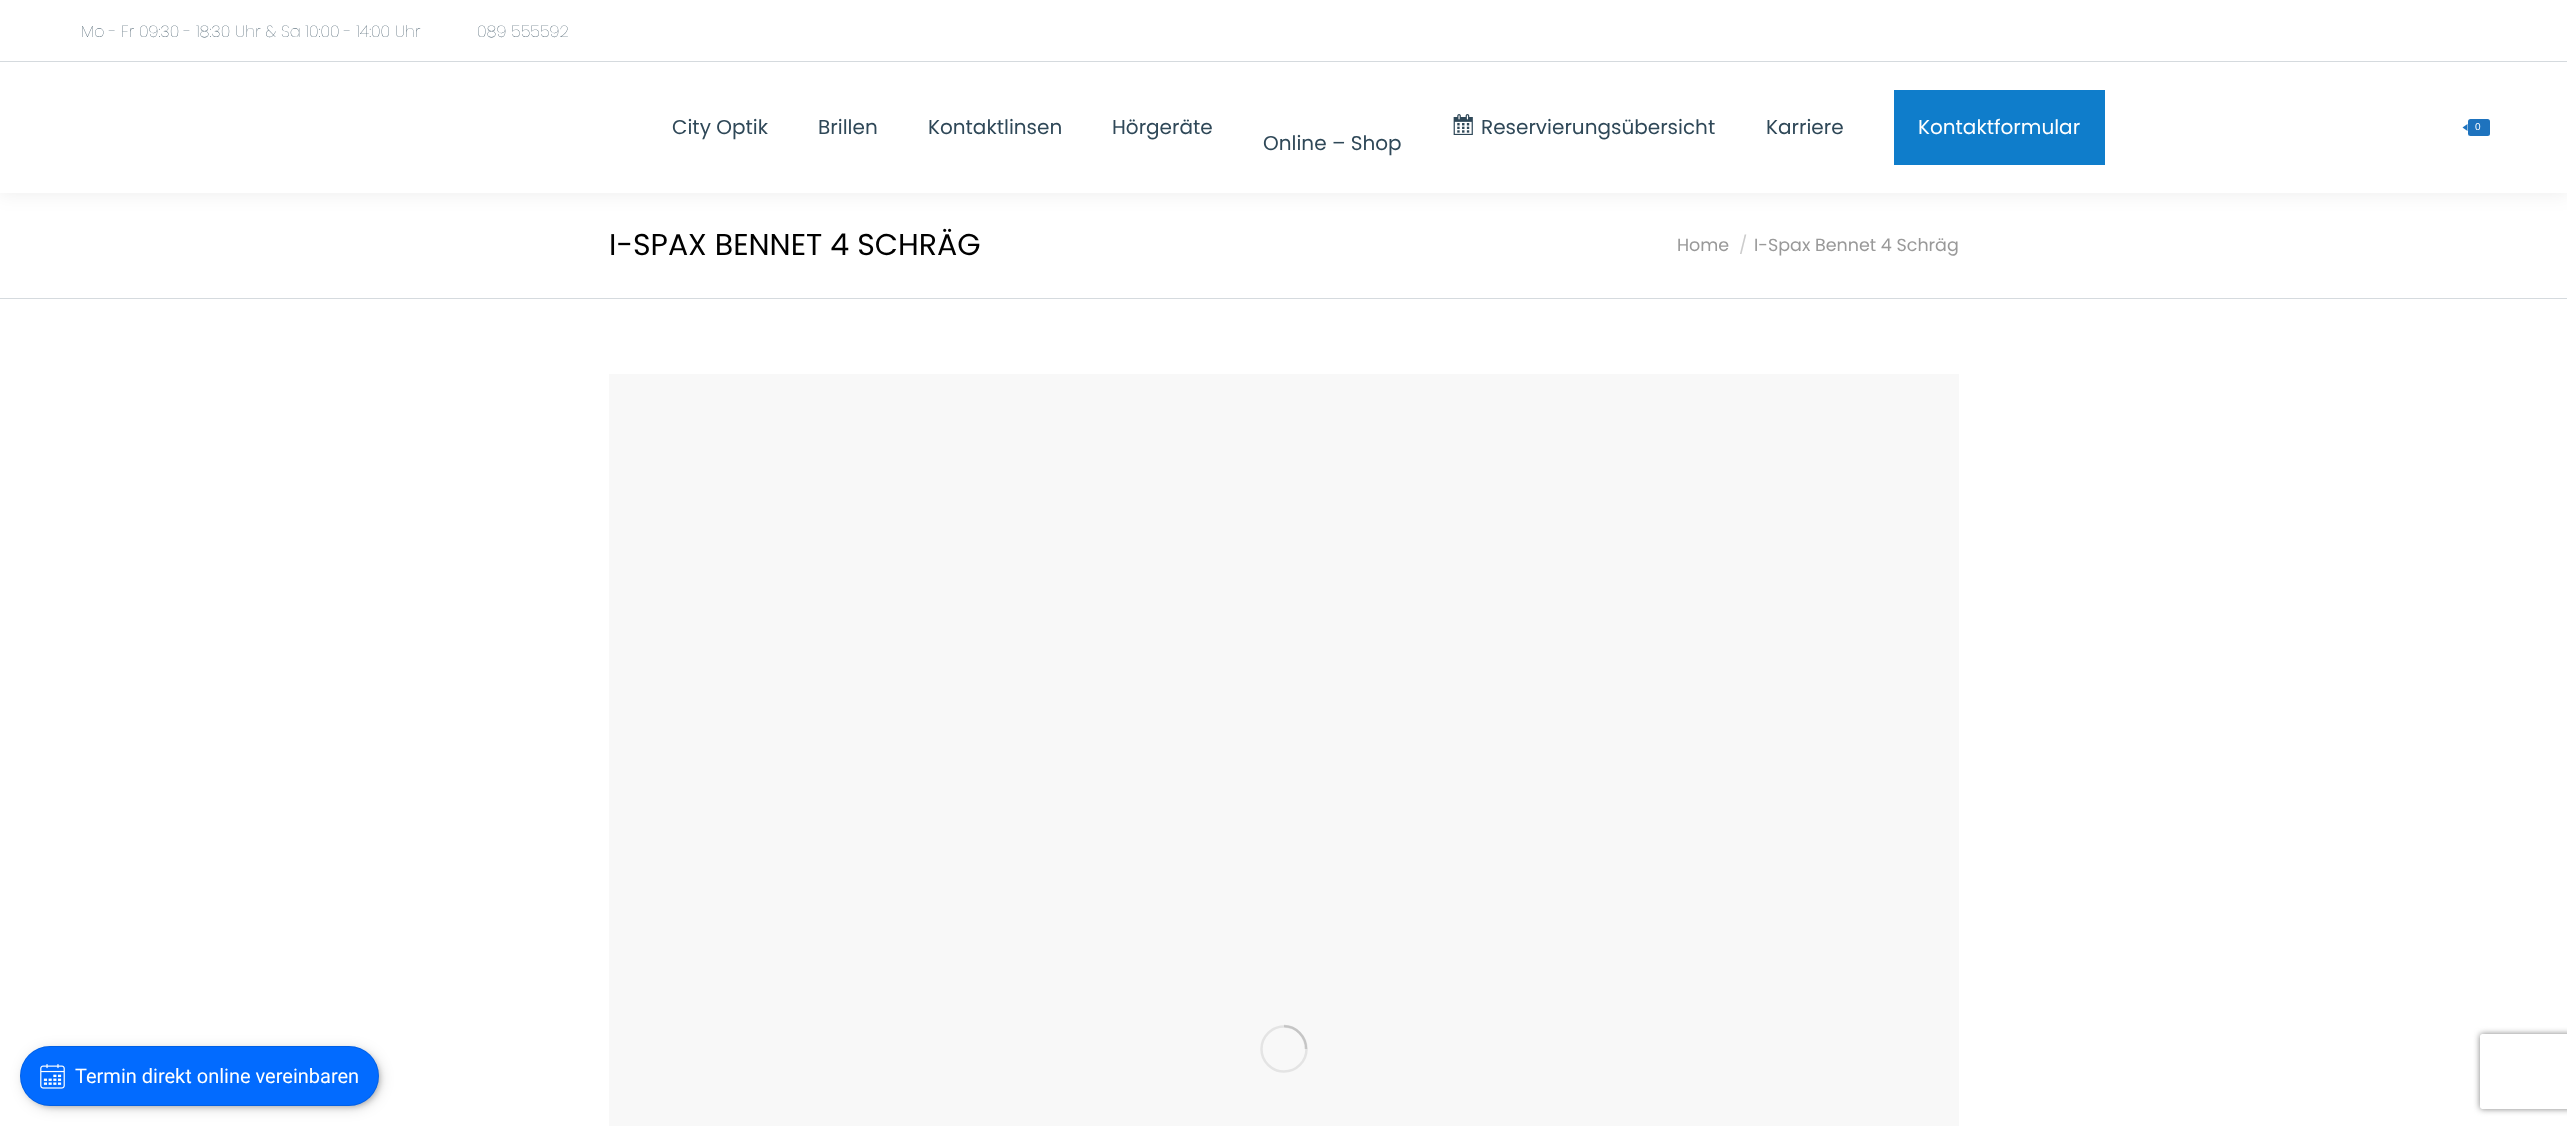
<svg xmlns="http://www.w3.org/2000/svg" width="2567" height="1126">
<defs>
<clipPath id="clip1"><path d="M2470 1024h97v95h-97zm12.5 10h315c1.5 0 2.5 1 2.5 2.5v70c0 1.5-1 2.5-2.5 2.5h-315c-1.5 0-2.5-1-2.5-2.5v-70c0-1.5 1-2.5 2.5-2.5z" clip-rule="evenodd"/></clipPath>
</defs>
<rect width="100%" height="100%" fill="#fff"/>
<rect x="-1" y="-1" width="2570" height="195" fill="#00000012" filter="blur(9.5px)"/>
<rect width="2567" height="193" fill="#fff"/>
<text x="81" y="37" style="font-family:Poppins;font-size:16.25px;font-weight:200;fill:#2f4858">Mo - Fr 09:30 - 18:30 Uhr &amp; Sa 10:00 - 14:00 Uhr</text>
<text x="477" y="37" style="font-family:Poppins;font-size:16.25px;font-weight:200;fill:#2f4858">089 555592</text>
<rect y="61" width="2567" height="1" fill="#d5dade"/>
<text x="672" y="134" style="font-family:Poppins;font-size:20px;fill:#2f4858">City Optik</text>
<text x="818" y="134" style="font-family:Poppins;font-size:20px;fill:#2f4858">Brillen</text>
<text x="928" y="134" style="font-family:Poppins;font-size:20px;fill:#2f4858">Kontaktlinsen</text>
<text x="1112" y="134" style="font-family:Poppins;font-size:20px;fill:#2f4858">Hörgeräte</text>
<image x="1453" y="114" width="20" height="21" href="media/1.png"/>
<text x="1481" y="134" style="font-family:Poppins;font-size:20px;fill:#2f4858">Reservierungsübersicht</text>
<text x="1766" y="134" style="font-family:Poppins;font-size:20px;fill:#2f4858">Karriere</text>
<rect x="1894" y="90" width="211" height="75" fill="#0f7dcb"/>
<text x="1918" y="134" style="font-family:Poppins;font-size:20px;fill:#fff">Kontaktformular</text>
<text x="1263" y="150" style="font-family:Poppins;font-size:20px;fill:#2f4858">Online – Shop</text>
<rect x="2468" y="119" width="22" height="17" rx="2.5" fill="#1e73be"/>
<path d="M2467.5 124v7l-5-3.5z" fill="#1e73be"/>
<text x="2475" y="130" style="font-family:Liberation Sans;font-size:10px;fill:#fff">0</text>
<rect y="298" width="2567" height="1" fill="#d5dade"/>
<text x="609" y="255" style="font-family:Poppins;font-size:30px;fill:#000">I-SPAX BENNET 4 SCHRÄG</text>
<text x="1677" y="251" style="font-family:Poppins;font-size:17.5px;fill:#999">Home</text>
<text x="1739" y="251" style="font-family:Poppins;font-size:17.5px;fill:#ccc">/</text>
<text x="1754" y="251" style="font-family:Poppins;font-size:17.5px;fill:#999">I-Spax Bennet 4 Schräg</text>
<rect x="609" y="374" width="1350" height="752" fill="#f8f8f8"/>
<circle cx="1284" cy="1049" r="22.5" fill="none" stroke="#e4e4e4" stroke-width="2.5"/>
<path d="M1306 1049c0-12.5-10-23-22-23" fill="none" stroke="#68686840" stroke-width="2.5"/>
<rect x="25" y="1051" width="354" height="55" rx="27.5" fill="#00000033" filter="blur(7.5px)"/>
<rect x="25" y="1051" width="354" height="55" rx="27.5" fill="#0000004d" filter="blur(3px)"/>
<rect x="20" y="1046" width="359" height="60" rx="30" fill="#026bff"/>
<rect x="20.5" y="1046.5" width="358" height="59" rx="29.5" fill="none" stroke="#0000001a"/>
<image x="40" y="1064" width="25" height="25" href="media/2.png"/>
<text x="75" y="1083" style="font-family:Roboto;font-size:20px;fill:#fff">Termin direkt online vereinbaren</text>
<g clip-path="url(#clip1)">
<rect x="2480" y="1034" width="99" height="75" rx="2.5" fill="#808080" filter="blur(3px)"/>
</g>
</svg>
